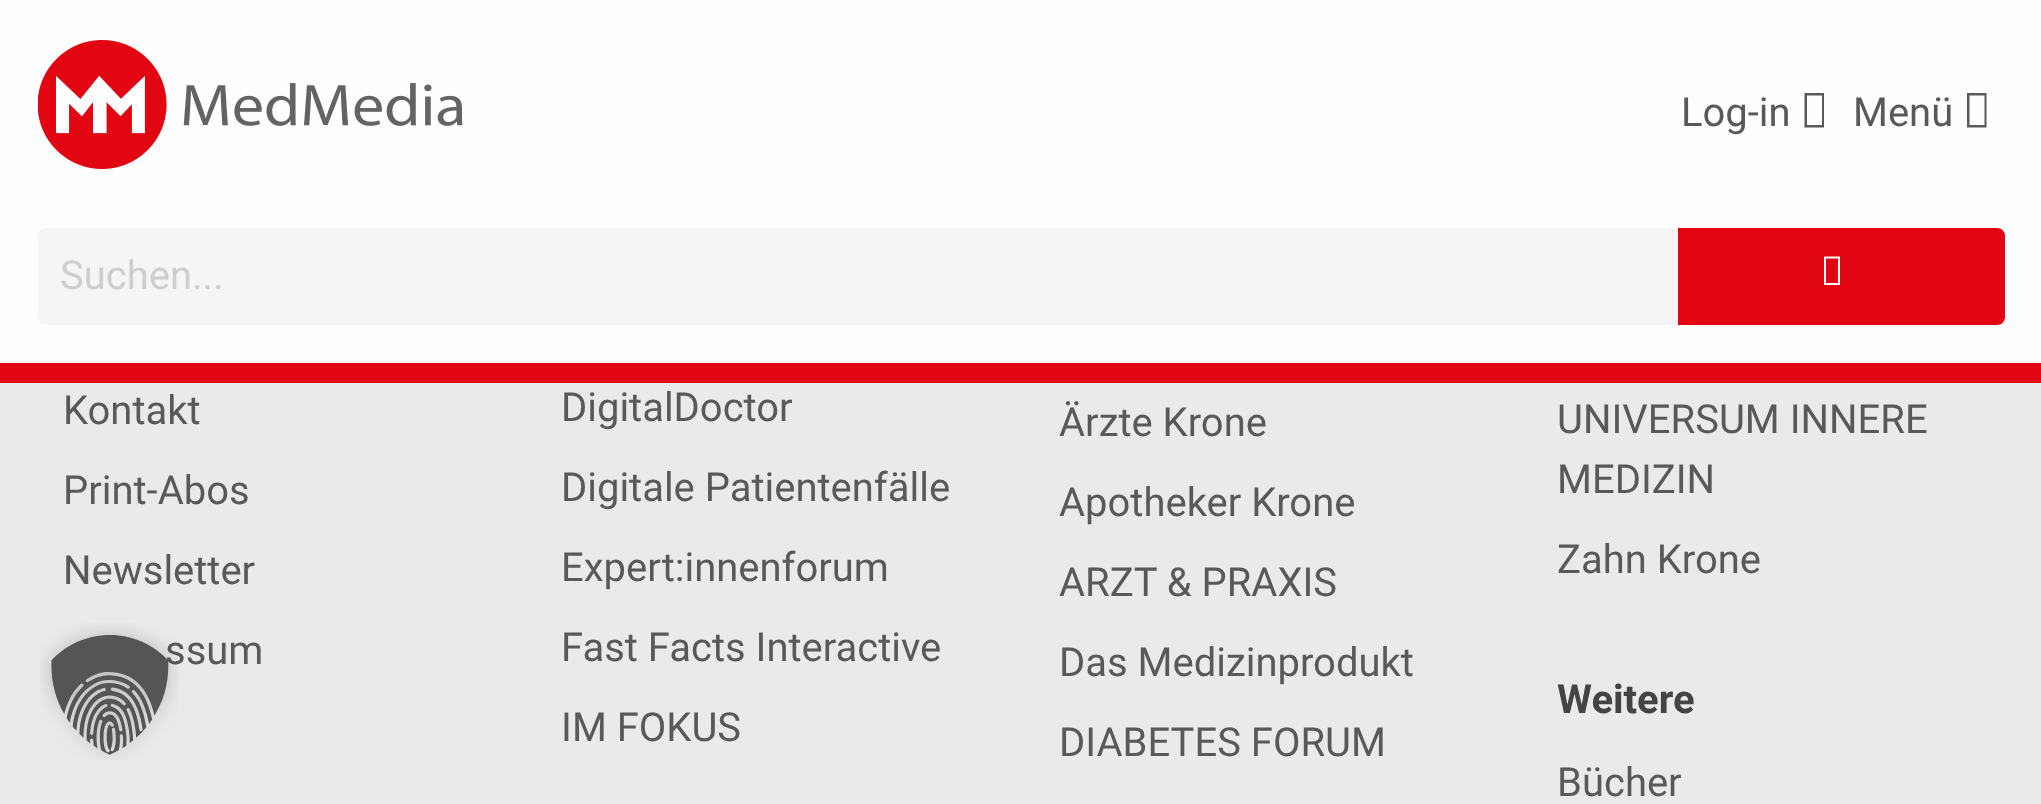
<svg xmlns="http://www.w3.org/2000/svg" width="2041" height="804">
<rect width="100%" height="100%" fill="#eaeaea"/>
<rect width="2041" height="363" fill="#fefefe"/>
<rect y="363" width="2041" height="20" fill="#e20613"/>
<image x="38" y="40" width="425" height="129" href="media/1.png"/>
<text x="1681" y="126" style="font-family:Roboto;font-size:40px;fill:#595959">Log-in</text>
<path d="M1804.5 127.5v-34.5h19.5v34.5zm2.5-2.5h15v-29.5h-15z" fill="#595959"/>
<text x="1853" y="126" style="font-family:Roboto;font-size:40px;fill:#595959">Menü</text>
<path d="M1967 127.5v-34.5h19.5v34.5zm2.5-2.5h15v-29.5h-15z" fill="#595959"/>
<path d="M46 228h1632v97h-1632c-4.5 0-8-3.5-8-8v-81c0-4.5 3.5-8 8-8z" fill="#f5f5f5"/>
<text x="60" y="289" style="font-family:Roboto;font-size:40px;fill:#cecece">Suchen...</text>
<path d="M1678 228h319c4.5 0 8 3.5 8 8v81c0 4.5-3.5 8-8 8h-319z" fill="#e20613"/>
<path d="M1824 285v-28.5h16v28.5zm2-2h12v-24.5h-12z" fill="#fefefe"/>
<text x="63" y="424" style="font-family:Roboto;font-size:40px;fill:#595959">Kontakt</text>
<text x="63" y="504" style="font-family:Roboto;font-size:40px;fill:#595959">Print-Abos</text>
<text x="63" y="584" style="font-family:Roboto;font-size:40px;fill:#595959">Newsletter</text>
<text x="165" y="664" style="font-family:Roboto;font-size:40px;fill:#595959">ssum</text>
<text x="561" y="421" style="font-family:Roboto;font-size:40px;fill:#595959">DigitalDoctor</text>
<text x="561" y="501" style="font-family:Roboto;font-size:40px;fill:#595959">Digitale Patientenfälle</text>
<text x="561" y="581" style="font-family:Roboto;font-size:40px;fill:#595959">Expert:innenforum</text>
<text x="561" y="661" style="font-family:Roboto;font-size:40px;fill:#595959">Fast Facts Interactive</text>
<text x="561" y="741" style="font-family:Roboto;font-size:40px;fill:#595959">IM FOKUS</text>
<text x="1059" y="436" style="font-family:Roboto;font-size:40px;fill:#595959">Ärzte Krone</text>
<text x="1059" y="516" style="font-family:Roboto;font-size:40px;fill:#595959">Apotheker Krone</text>
<text x="1059" y="596" style="font-family:Roboto;font-size:40px;fill:#595959">ARZT &amp; PRAXIS</text>
<text x="1059" y="676" style="font-family:Roboto;font-size:40px;fill:#595959">Das Medizinprodukt</text>
<text x="1059" y="756" style="font-family:Roboto;font-size:40px;fill:#595959">DIABETES FORUM</text>
<text x="1557" y="433" style="font-family:Roboto;font-size:40px;fill:#595959">UNIVERSUM INNERE</text>
<text x="1557" y="493" style="font-family:Roboto;font-size:40px;fill:#595959">MEDIZIN</text>
<text x="1557" y="573" style="font-family:Roboto;font-size:40px;fill:#595959">Zahn Krone</text>
<text x="1557" y="713" style="font-family:Roboto;font-size:40px;font-weight:bold;fill:#444">Weitere</text>
<text x="1557" y="796" style="font-family:Roboto;font-size:40px;fill:#595959">Bücher</text>
<image x="40" y="623" width="139" height="137" href="media/2.png"/>
</svg>
